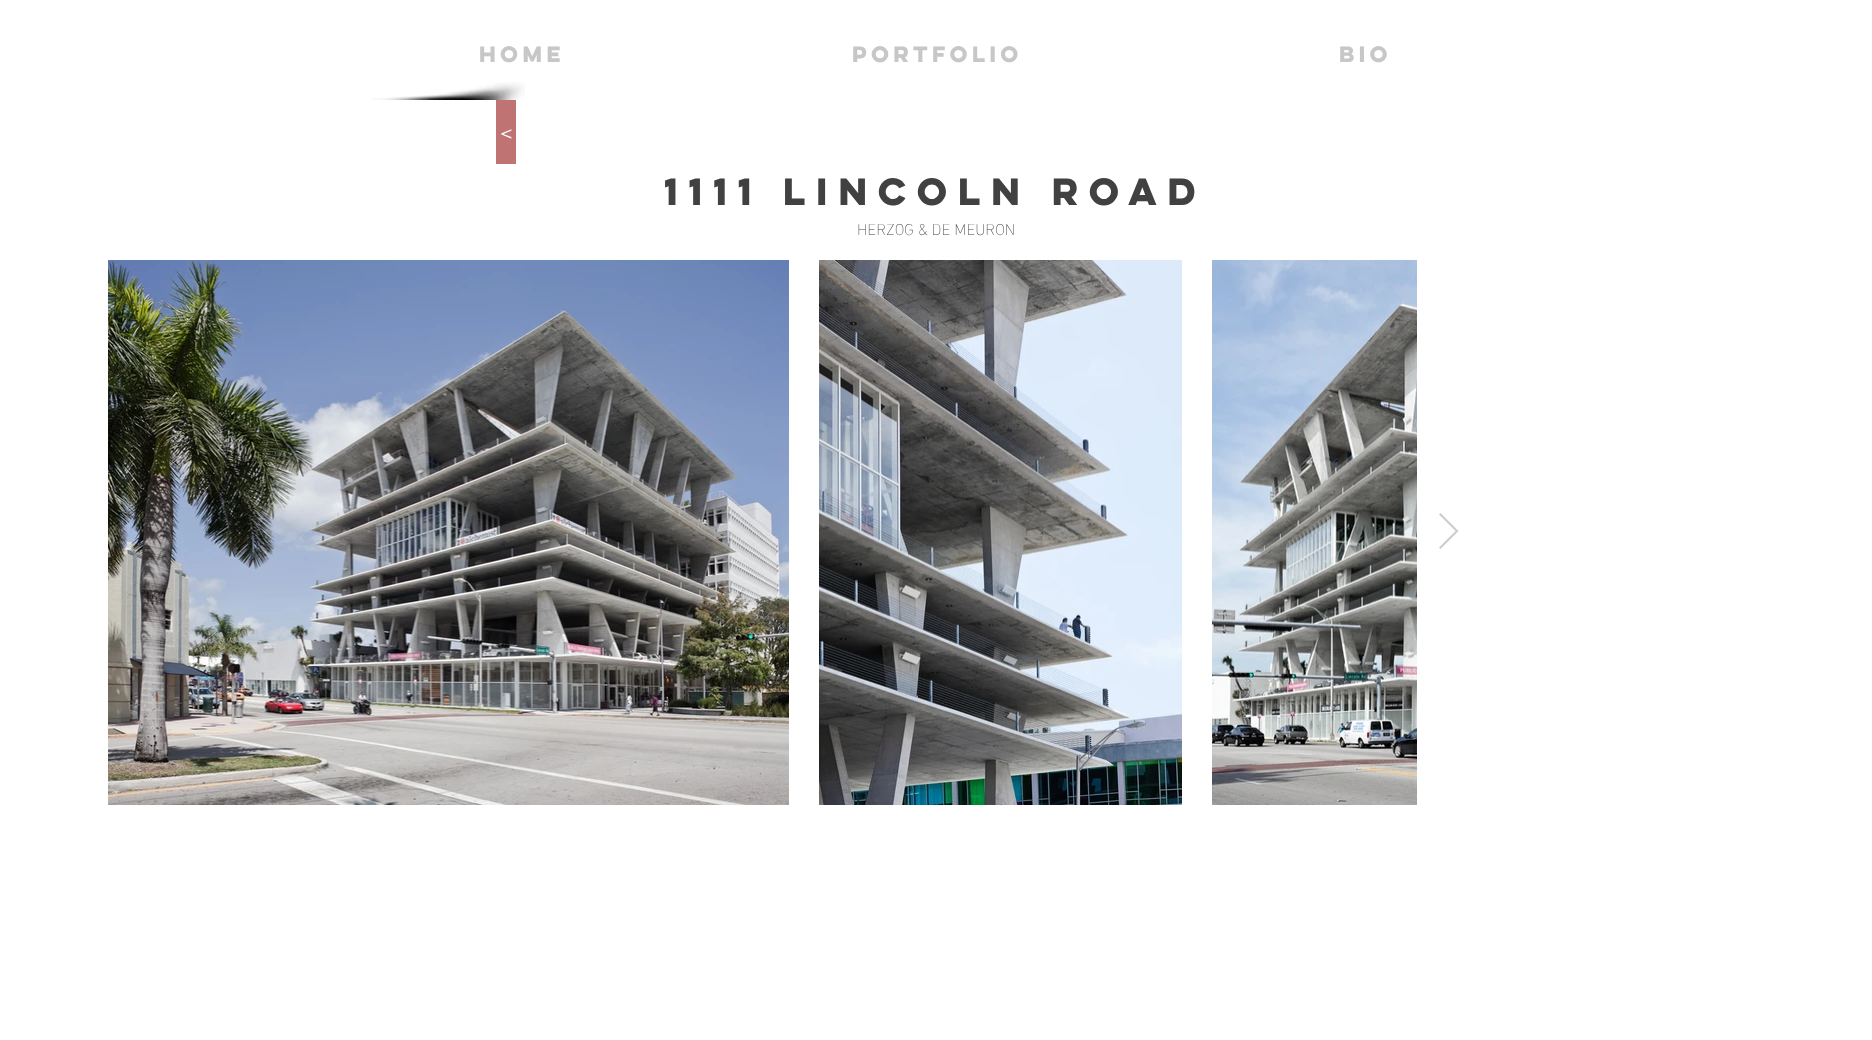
<svg xmlns="http://www.w3.org/2000/svg" width="1872" height="1040">
<rect width="100%" height="100%" fill="#fff"/>
<text x="479" y="62" style="font-family:'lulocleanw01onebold';font-size:20px;font-weight:bold;fill:#c7c7c7">HOME</text>
<text x="852" y="62" style="font-family:'lulocleanw01onebold';font-size:20px;font-weight:bold;fill:#c7c7c7">PORTFOLIO</text>
<text x="1339" y="62" style="font-family:'lulocleanw01onebold';font-size:20px;font-weight:bold;fill:#c7c7c7">BIO</text>
<image x="371" y="82" width="154" height="18" href="media/1.png"/>
<rect x="496" y="100" width="20" height="64" fill="#bf7373"/>
<text x="513" y="127" transform="rotate(180 513 127)" style="font-family:'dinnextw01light';font-size:25px;font-weight:300;fill:#fff">&gt;</text>
<text x="664" y="205" style="font-family:'lulocleanw01onebold';font-size:34px;font-weight:bold;letter-spacing:3.4px;fill:#414141">1111 LINCOLN ROAD</text>
<text x="857" y="235" style="font-family:'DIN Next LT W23';font-size:16px;font-weight:200;fill:#414141">HERZOG &amp; DE MEURON</text>
<image x="108" y="260" width="681" height="545" href="media/2.png"/>
<image x="819" y="260" width="363" height="545" href="media/3.png"/>
<image x="1212" y="260" width="205" height="545" href="media/4.png"/>
<path d="M1439 514.5l1.5-1.5l18 18l-18 18l-1.5-1.5l16.5-16.5z" fill="#cdcdcd"/>
</svg>
